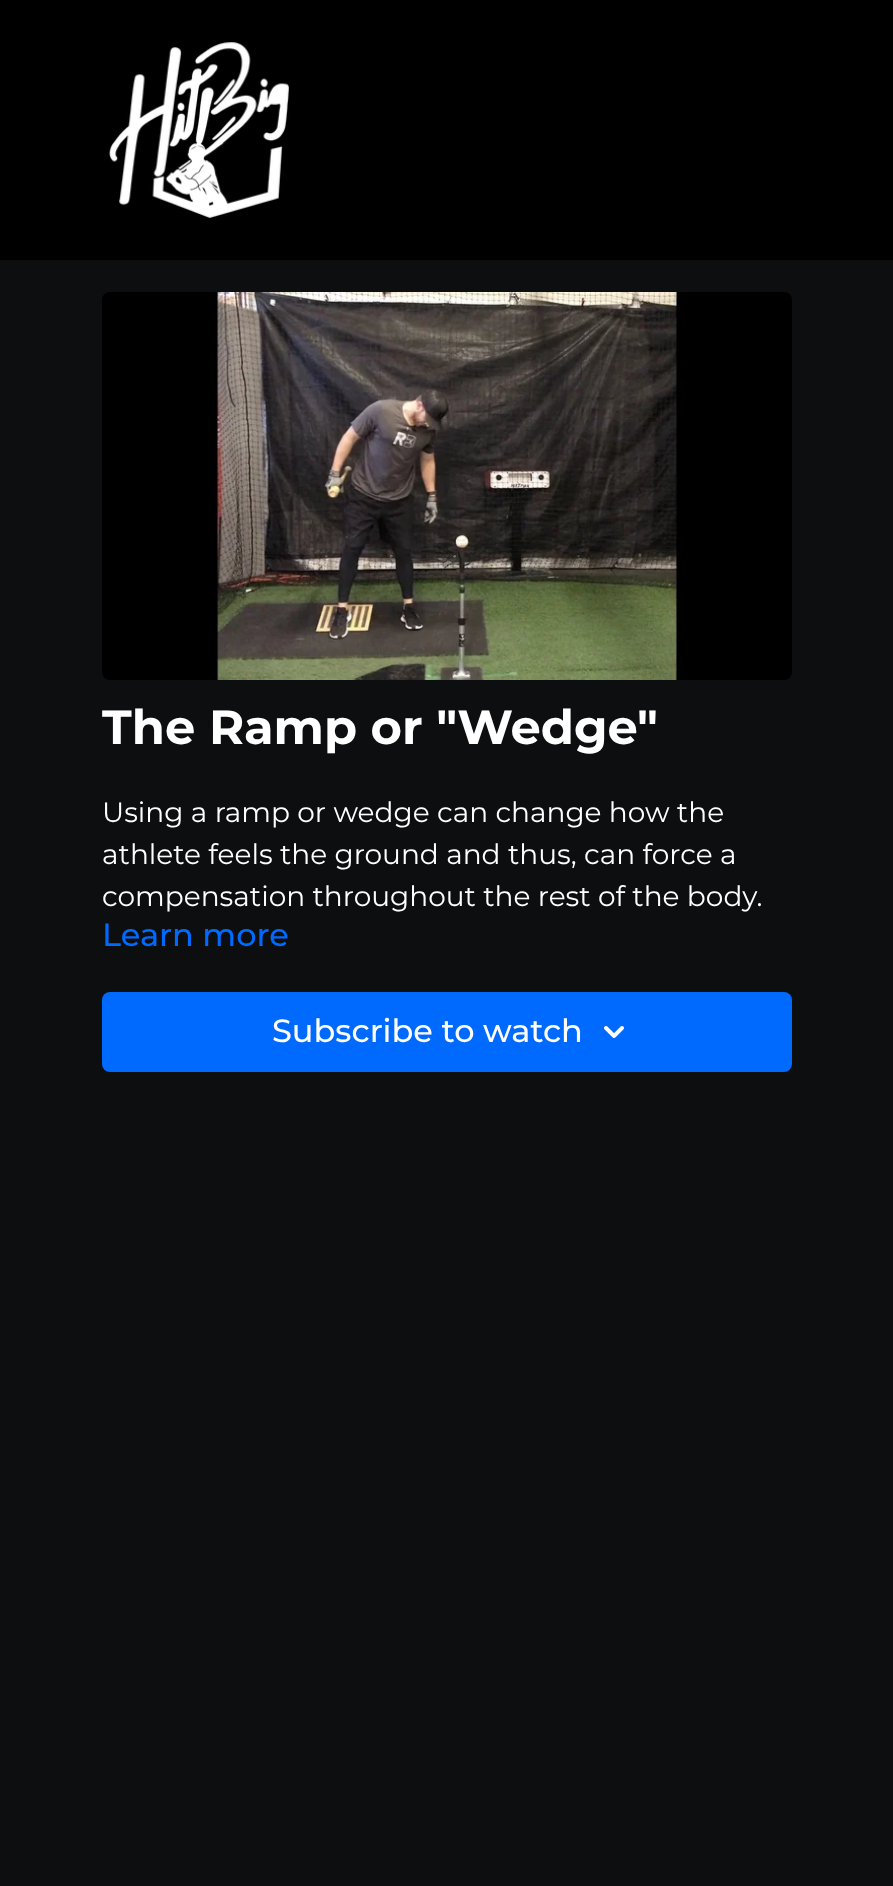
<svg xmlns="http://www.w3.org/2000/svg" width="893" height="1886">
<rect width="100%" height="100%" fill="#0d0e10"/>
<rect width="893" height="260" fill="#000"/>
<image x="109" y="42" width="180" height="176" href="media/1.png"/>
<image x="102" y="292" width="690" height="388" href="media/2.png"/>
<text x="102" y="744" style="font-family:Montserrat;font-size:48px;font-weight:bold;fill:#fff">The Ramp or "Wedge"</text>
<text x="102" y="822" style="font-family:Montserrat;font-size:28px;fill:#fff">Using a ramp or wedge can change how the</text>
<text x="102" y="864" style="font-family:Montserrat;font-size:28px;fill:#fff">athlete feels the ground and thus, can force a</text>
<text x="102" y="906" style="font-family:Montserrat;font-size:28px;fill:#fff">compensation throughout the rest of the body.</text>
<text x="102" y="946" style="font-family:Montserrat;font-size:32px;font-weight:500;fill:#006aff">Learn more</text>
<rect x="102" y="992" width="690" height="80" rx="8" fill="#006aff"/>
<text x="272" y="1042" style="font-family:Montserrat;font-size:32px;font-weight:500;fill:#fff">Subscribe to watch</text>
<image x="604" y="1026" width="20" height="12" href="media/3.png"/>
</svg>
